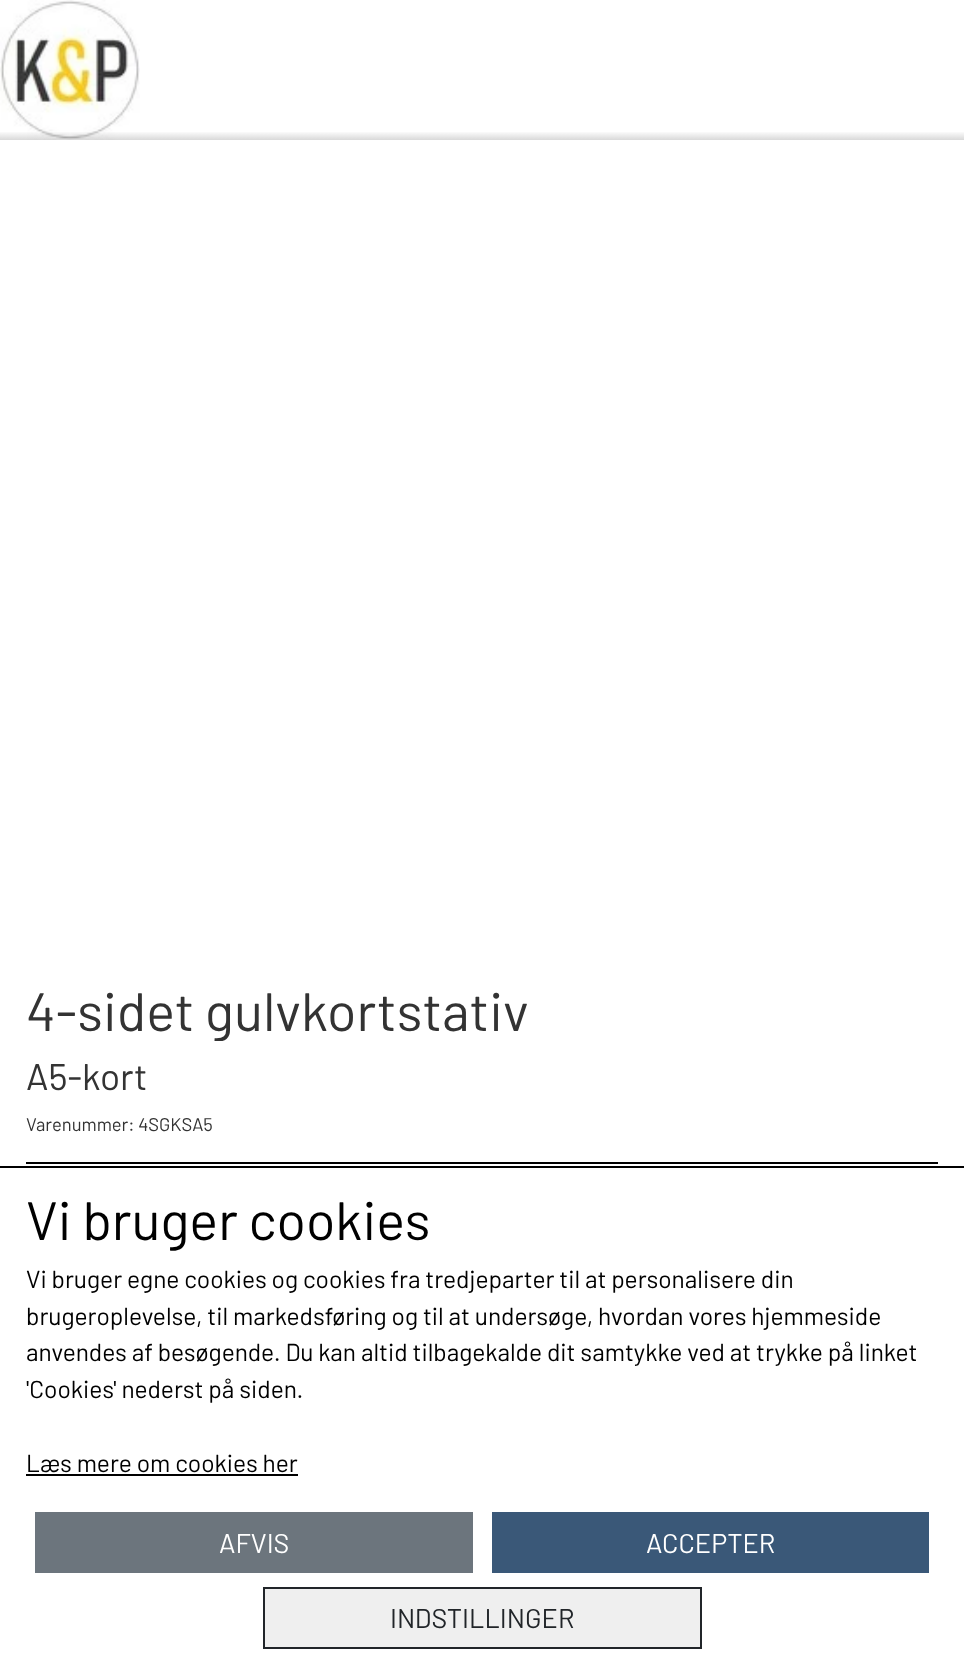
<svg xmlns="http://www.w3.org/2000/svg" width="964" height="1660">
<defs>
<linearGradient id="g1" gradientUnits="userSpaceOnUse" x1="482" y1="140" x2="482" y2="131"><stop offset="0" stop-color="#000" stop-opacity="0.15"/><stop offset="1" stop-color="#000" stop-opacity="0"/></linearGradient>
<clipPath id="clip1"><rect x="26" y="977" width="912" height="64"/></clipPath>
</defs>
<rect width="100%" height="100%" fill="#fff"/>
<image x="0" y="0" width="140" height="140" href="media/1.png"/>
<rect y="132" width="964" height="8" fill="url(#g1)"/>
<g clip-path="url(#clip1)">
<text x="26" y="1031" style="font-family:Barlow;font-size:54px;fill:#333">4-sidet gulvkortstativ</text>
</g>
<text x="26" y="1090" style="font-family:Barlow;font-size:37px;fill:#333">A5-kort</text>
<text x="26" y="1131" style="font-family:Barlow;font-size:18.4px;fill:#333">Varenummer: 4SGKSA5</text>
<rect x="26" y="1162" width="912" height="2" fill="#000"/>
<rect y="1166" width="964" height="2" fill="#000"/>
<text x="26" y="1240" style="font-family:Barlow;font-size:54px;fill:#000">Vi bruger cookies</text>
<text x="26" y="1288" style="font-family:Barlow;font-size:24.5px;fill:#000">Vi bruger egne cookies og cookies fra tredjeparter til at personalisere din</text>
<text x="26" y="1325" style="font-family:Barlow;font-size:24.5px;fill:#000">brugeroplevelse, til markedsføring og til at undersøge, hvordan vores hjemmeside</text>
<text x="26" y="1361" style="font-family:Barlow;font-size:24.5px;fill:#000">anvendes af besøgende. Du kan altid tilbagekalde dit samtykke ved at trykke på linket</text>
<text x="26" y="1398" style="font-family:Barlow;font-size:24.5px;fill:#000">'Cookies' nederst på siden.</text>
<text x="26" y="1472" style="font-family:Barlow;font-size:24.5px;fill:#000">Læs mere om cookies her</text>
<rect x="26" y="1474" width="272" height="2" fill="#000"/>
<rect x="35" y="1512" width="438" height="61" fill="#6c757d"/>
<text x="219" y="1553" style="font-family:Barlow;font-size:27px;fill:#fff">AFVIS</text>
<rect x="492" y="1512" width="437" height="61" fill="#3a5878"/>
<text x="646" y="1553" style="font-family:Barlow;font-size:27px;fill:#fff">ACCEPTER</text>
<rect x="264" y="1588" width="437" height="60" fill="#efefef" stroke="#212529" stroke-width="2"/>
<text x="390" y="1628" style="font-family:Barlow;font-size:27px;fill:#212529">INDSTILLINGER</text>
</svg>
